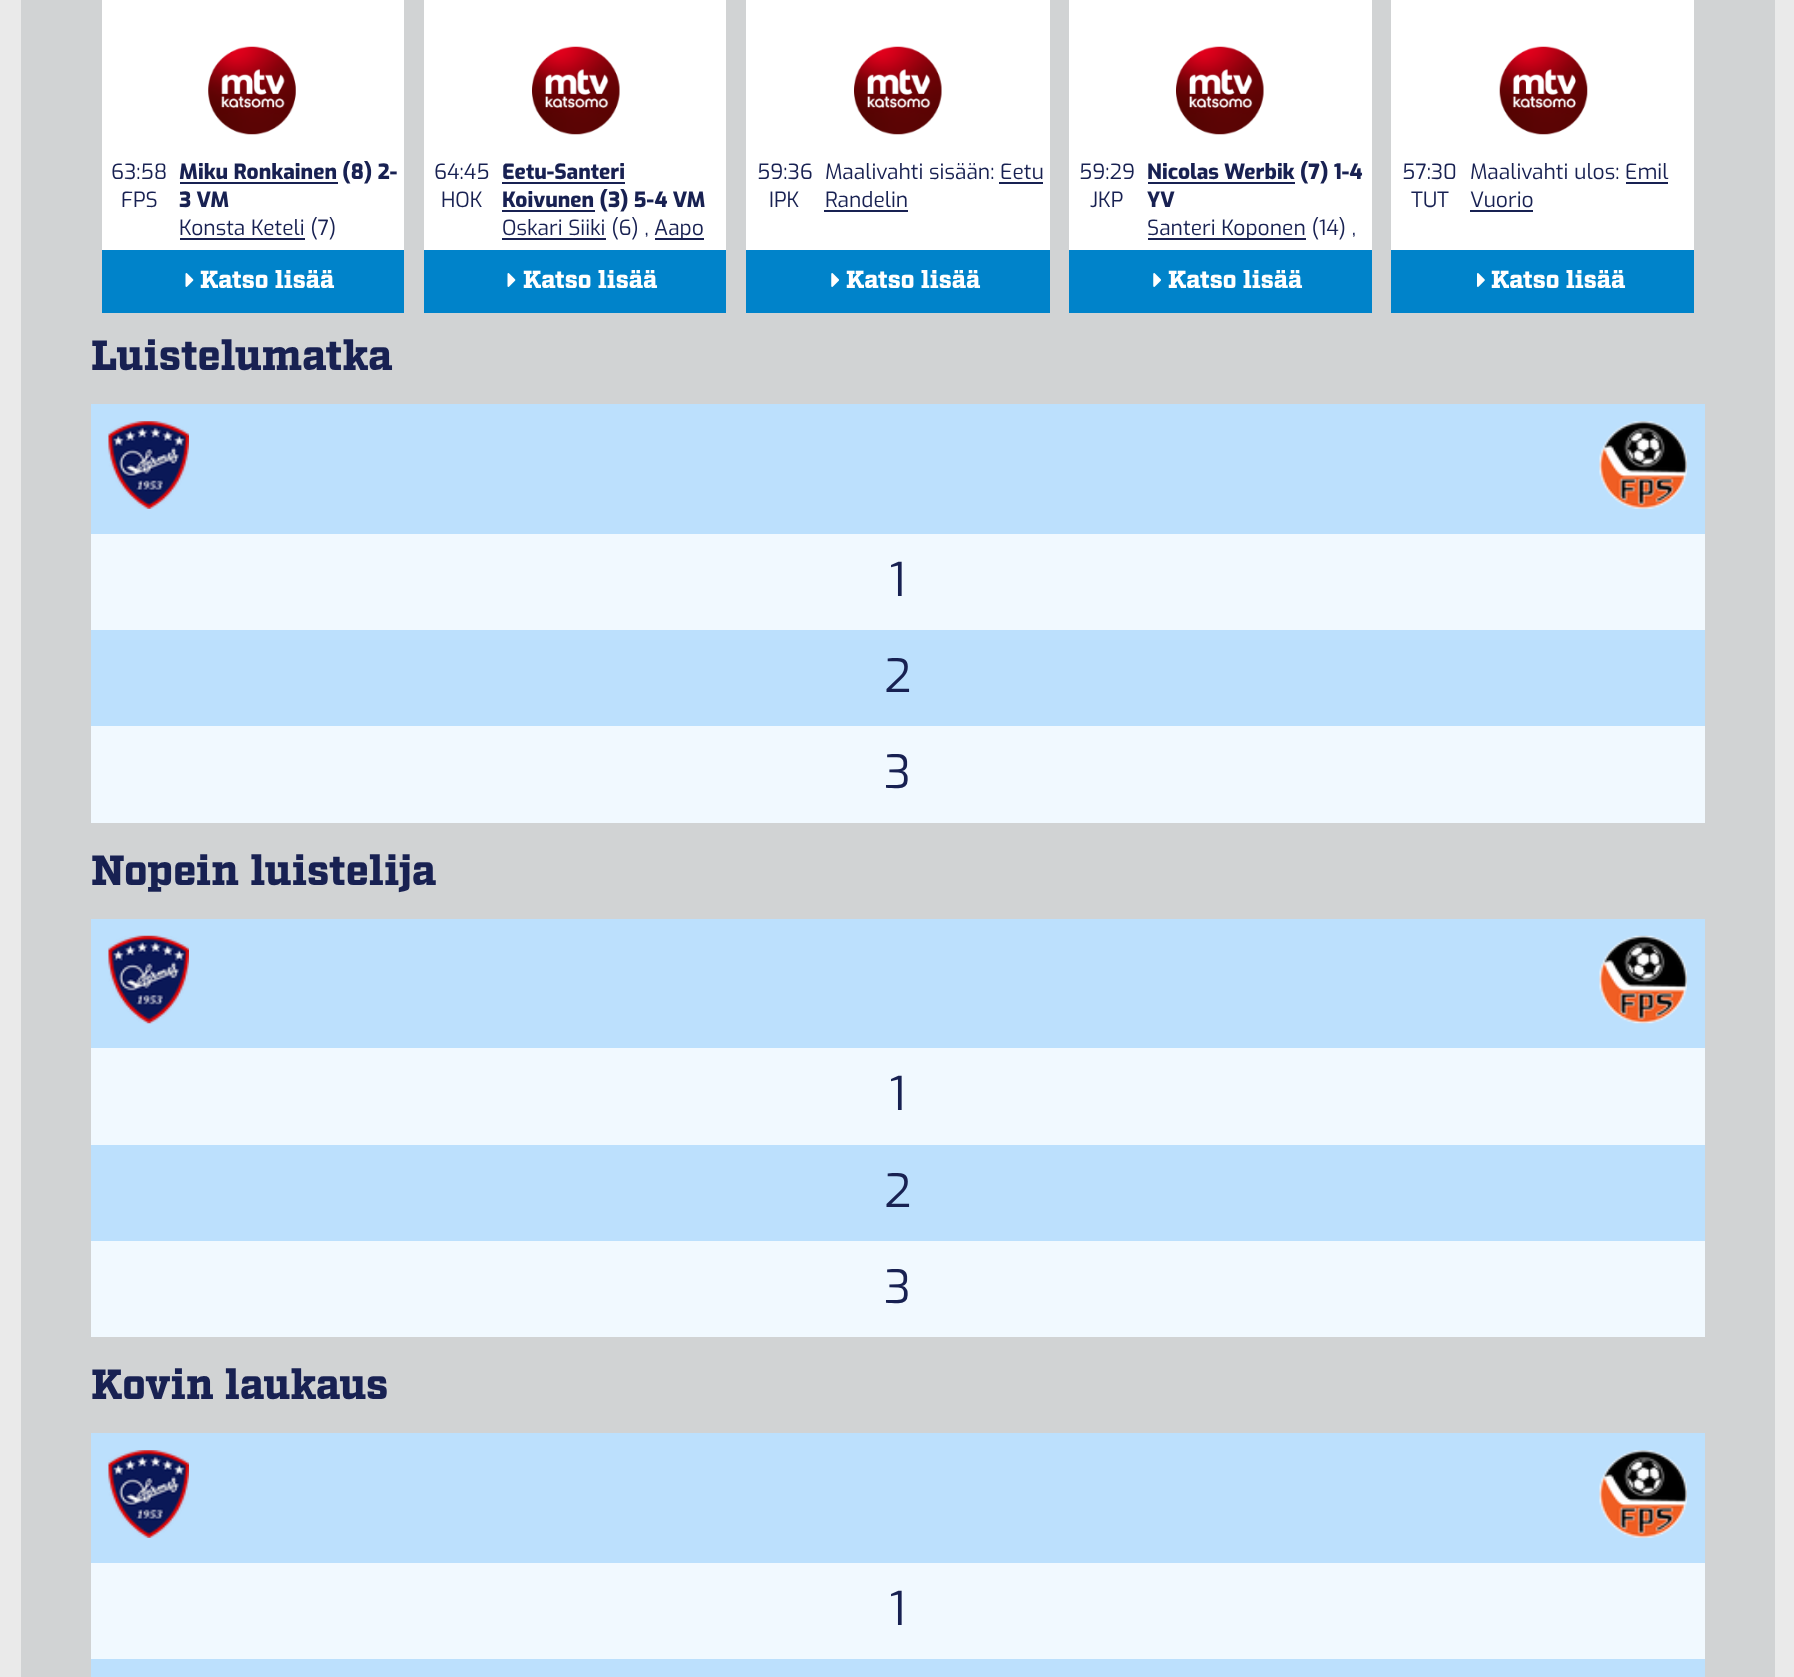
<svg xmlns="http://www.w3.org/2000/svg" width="1794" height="1677">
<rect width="100%" height="100%" fill="#eaeaea"/>
<rect x="21" width="1754" height="1677" fill="#d1d3d4"/>
<rect x="102" width="302" height="250" fill="#fff"/>
<image x="208" y="46" width="88" height="89" href="media/1.png"/>
<text x="111" y="179" style="font-family:Exo;font-size:21px;fill:#182152">63:58</text>
<text x="121" y="207" style="font-family:Exo;font-size:21px;fill:#182152">FPS</text>
<rect x="180" y="182" width="158" height="2" fill="#182152"/>
<text x="179" y="179" style="font-family:Exo;font-size:21px;font-weight:800;fill:#182152">Miku Ronkainen (8) 2-</text>
<text x="179" y="207" style="font-family:Exo;font-size:21px;font-weight:800;fill:#182152">3 VM</text>
<rect x="180" y="238" width="125" height="2" fill="#182152"/>
<text x="179" y="235" style="font-family:Exo;font-size:21px;fill:#182152">Konsta Keteli (7)</text>
<rect x="102" y="250" width="302" height="63" fill="#0083ca"/>
<image x="185" y="273" width="9" height="14" href="media/2.png"/>
<text x="200" y="288" style="font-family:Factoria;font-size:24.5px;font-weight:900;fill:#fff">Katso lisää</text>
<rect x="424" width="302" height="250" fill="#fff"/>
<image x="532" y="46" width="88" height="89" href="media/3.png"/>
<text x="434" y="179" style="font-family:Exo;font-size:21px;fill:#182152">64:45</text>
<text x="441" y="207" style="font-family:Exo;font-size:21px;fill:#182152">HOK</text>
<text x="502" y="179" style="font-family:Exo;font-size:21px;font-weight:800;fill:#182152">Eetu-Santeri</text>
<rect x="502" y="182" width="123" height="2" fill="#182152"/>
<rect x="502" y="210" width="93" height="2" fill="#182152"/>
<text x="502" y="207" style="font-family:Exo;font-size:21px;font-weight:800;fill:#182152">Koivunen (3) 5-4 VM</text>
<rect x="502" y="238" width="104" height="2" fill="#182152"/>
<text x="502" y="235" style="font-family:Exo;font-size:21px;fill:#182152">Oskari Siiki (6) ,</text>
<rect x="655" y="238" width="49" height="2" fill="#182152"/>
<text x="654" y="235" style="font-family:Exo;font-size:21px;fill:#182152">Aapo</text>
<rect x="424" y="250" width="302" height="63" fill="#0083ca"/>
<image x="507" y="273" width="9" height="14" href="media/2.png"/>
<text x="523" y="288" style="font-family:Factoria;font-size:24.5px;font-weight:900;fill:#fff">Katso lisää</text>
<rect x="746" width="304" height="250" fill="#fff"/>
<image x="854" y="46" width="88" height="89" href="media/4.png"/>
<text x="757" y="179" style="font-family:Exo;font-size:21px;fill:#182152">59:36</text>
<text x="769" y="207" style="font-family:Exo;font-size:21px;fill:#182152">IPK</text>
<text x="825" y="179" style="font-family:Exo;font-size:21px;fill:#182152">Maalivahti sisään: Eetu</text>
<text x="825" y="207" style="font-family:Exo;font-size:21px;fill:#182152">Randelin</text>
<rect x="999" y="182" width="44" height="2" fill="#182152"/>
<rect x="824" y="210" width="84" height="2" fill="#182152"/>
<rect x="746" y="250" width="304" height="63" fill="#0083ca"/>
<image x="831" y="273" width="8" height="14" href="media/5.png"/>
<text x="846" y="288" style="font-family:Factoria;font-size:24.5px;font-weight:900;fill:#fff">Katso lisää</text>
<rect x="1069" width="303" height="250" fill="#fff"/>
<image x="1176" y="46" width="88" height="89" href="media/4.png"/>
<text x="1079" y="179" style="font-family:Exo;font-size:21px;fill:#182152">59:29</text>
<text x="1090" y="207" style="font-family:Exo;font-size:21px;fill:#182152">JKP</text>
<rect x="1148" y="182" width="147" height="2" fill="#182152"/>
<text x="1147" y="179" style="font-family:Exo;font-size:21px;font-weight:800;fill:#182152">Nicolas Werbik (7) 1-4</text>
<text x="1147" y="207" style="font-family:Exo;font-size:21px;font-weight:800;fill:#182152">YV</text>
<rect x="1148" y="238" width="158" height="2" fill="#182152"/>
<text x="1147" y="235" style="font-family:Exo;font-size:21px;fill:#182152">Santeri Koponen (14) ,</text>
<rect x="1069" y="250" width="303" height="63" fill="#0083ca"/>
<image x="1153" y="273" width="8" height="14" href="media/5.png"/>
<text x="1168" y="288" style="font-family:Factoria;font-size:24.5px;font-weight:900;fill:#fff">Katso lisää</text>
<rect x="1391" width="303" height="250" fill="#fff"/>
<image x="1499" y="46" width="89" height="89" href="media/6.png"/>
<text x="1402" y="179" style="font-family:Exo;font-size:21px;fill:#182152">57:30</text>
<text x="1411" y="207" style="font-family:Exo;font-size:21px;fill:#182152">TUT</text>
<text x="1470" y="179" style="font-family:Exo;font-size:21px;fill:#182152">Maalivahti ulos: Emil</text>
<text x="1470" y="207" style="font-family:Exo;font-size:21px;fill:#182152">Vuorio</text>
<rect x="1626" y="182" width="42" height="2" fill="#182152"/>
<rect x="1470" y="210" width="63" height="2" fill="#182152"/>
<rect x="1391" y="250" width="303" height="63" fill="#0083ca"/>
<image x="1477" y="273" width="8" height="14" href="media/7.png"/>
<text x="1491" y="288" style="font-family:Factoria;font-size:24.5px;font-weight:900;fill:#fff">Katso lisää</text>
<text x="91" y="370" style="font-family:Factoria;font-size:42px;font-weight:900;fill:#182152">Luistelumatka</text>
<rect x="91" y="404" width="1614" height="130" fill="#bce0fd"/>
<image x="108" y="421" width="81" height="88" href="media/8.png"/>
<image x="1599" y="421" width="88" height="88" href="media/9.png"/>
<rect x="91" y="534" width="1614" height="96" fill="#f1f9ff"/>
<text x="889" y="596" style="font-family:Exo;font-size:46px;fill:#182152">1</text>
<rect x="91" y="630" width="1614" height="96" fill="#bce0fd"/>
<text x="884" y="692" style="font-family:Exo;font-size:46px;fill:#182152">2</text>
<rect x="91" y="726" width="1614" height="97" fill="#f1f9ff"/>
<text x="884" y="788" style="font-family:Exo;font-size:46px;fill:#182152">3</text>
<text x="91" y="885" style="font-family:Factoria;font-size:42px;font-weight:900;fill:#182152">Nopein luistelija</text>
<rect x="91" y="919" width="1614" height="129" fill="#bce0fd"/>
<image x="108" y="935" width="81" height="89" href="media/10.png"/>
<image x="1599" y="935" width="88" height="89" href="media/11.png"/>
<rect x="91" y="1048" width="1614" height="97" fill="#f1f9ff"/>
<text x="889" y="1110" style="font-family:Exo;font-size:46px;fill:#182152">1</text>
<rect x="91" y="1145" width="1614" height="96" fill="#bce0fd"/>
<text x="884" y="1207" style="font-family:Exo;font-size:46px;fill:#182152">2</text>
<rect x="91" y="1241" width="1614" height="96" fill="#f1f9ff"/>
<text x="884" y="1303" style="font-family:Exo;font-size:46px;fill:#182152">3</text>
<text x="91" y="1399" style="font-family:Factoria;font-size:42px;font-weight:900;fill:#182152">Kovin laukaus</text>
<rect x="91" y="1433" width="1614" height="130" fill="#bce0fd"/>
<image x="108" y="1450" width="81" height="88" href="media/8.png"/>
<image x="1599" y="1450" width="88" height="88" href="media/9.png"/>
<rect x="91" y="1563" width="1614" height="96" fill="#f1f9ff"/>
<text x="889" y="1625" style="font-family:Exo;font-size:46px;fill:#182152">1</text>
<rect x="91" y="1659" width="1614" height="18" fill="#bce0fd"/>
</svg>
